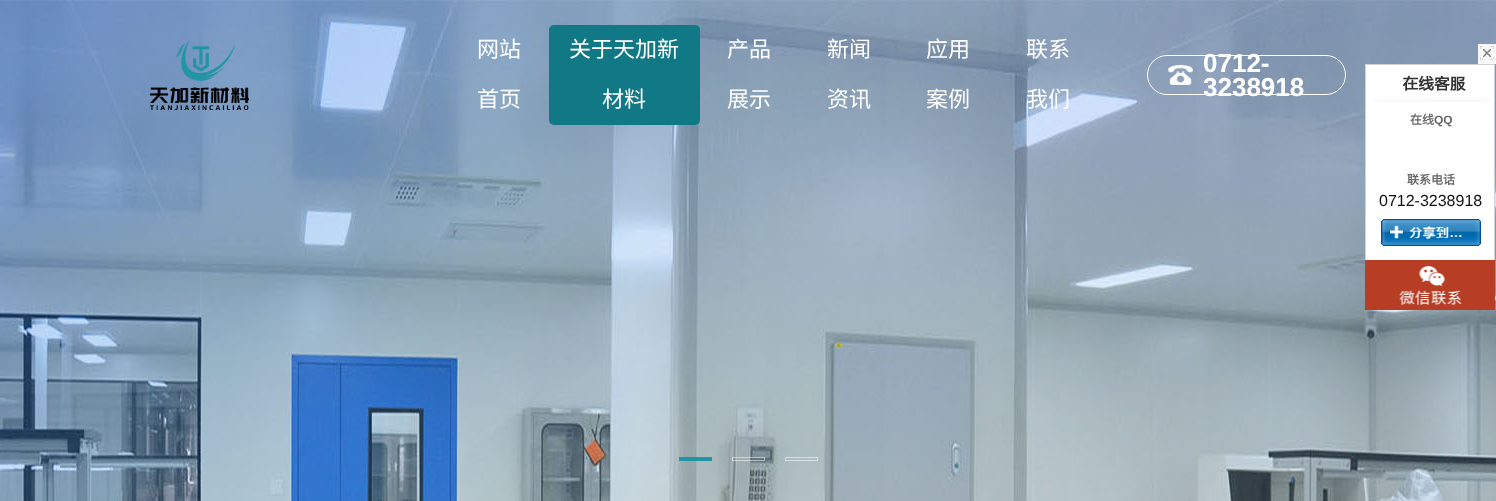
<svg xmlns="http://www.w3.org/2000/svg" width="1496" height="501">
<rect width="100%" height="100%" fill="#fff"/>
<image x="0" y="0" width="1496" height="501" href="media/1.png"/>
<rect x="679" y="457" width="33" height="4" fill="#2195a4"/>
<rect x="732.5" y="457.5" width="32" height="3" fill="none" stroke="#ffffff80"/>
<rect x="785.5" y="457.5" width="32" height="3" fill="none" stroke="#ffffff80"/>
<image x="150" y="40" width="99" height="70" href="media/2.png"/>
<text x="477" y="57" style="font-family:Noto Sans CJK SC;font-size:22px;fill:#fff">网站</text>
<text x="477" y="107" style="font-family:Noto Sans CJK SC;font-size:22px;fill:#fff">首页</text>
<rect x="549" y="25" width="151" height="100" rx="5" fill="#117885"/>
<text x="569" y="57" style="font-family:Noto Sans CJK SC;font-size:22px;fill:#fff">关于天加新</text>
<text x="602" y="107" style="font-family:Noto Sans CJK SC;font-size:22px;fill:#fff">材料</text>
<text x="727" y="57" style="font-family:Noto Sans CJK SC;font-size:22px;fill:#fff">产品</text>
<text x="727" y="107" style="font-family:Noto Sans CJK SC;font-size:22px;fill:#fff">展示</text>
<text x="827" y="57" style="font-family:Noto Sans CJK SC;font-size:22px;fill:#fff">新闻</text>
<text x="827" y="107" style="font-family:Noto Sans CJK SC;font-size:22px;fill:#fff">资讯</text>
<text x="926" y="57" style="font-family:Noto Sans CJK SC;font-size:22px;fill:#fff">应用</text>
<text x="926" y="107" style="font-family:Noto Sans CJK SC;font-size:22px;fill:#fff">案例</text>
<text x="1026" y="57" style="font-family:Noto Sans CJK SC;font-size:22px;fill:#fff">联系</text>
<text x="1026" y="107" style="font-family:Noto Sans CJK SC;font-size:22px;fill:#fff">我们</text>
<rect x="1147.5" y="55.5" width="198" height="39" rx="19.5" fill="none" stroke="#fff"/>
<image x="1168" y="65" width="25" height="20" href="media/3.png"/>
<text x="1203" y="72" style="font-family:Liberation Sans;font-size:26px;font-weight:bold;fill:#fff">0712-</text>
<text x="1203" y="96" style="font-family:Liberation Sans;font-size:26px;font-weight:bold;fill:#fff">3238918</text>
<rect x="1478" y="44" width="18" height="20" fill="#f7f7f7"/>
<image x="1480" y="46" width="14" height="14" href="media/4.png"/>
<rect x="1366" y="65" width="128" height="195" fill="#fff"/>
<image x="1373" y="75" width="117" height="27" href="media/5.png"/>
<rect x="1365" y="64" width="130" height="1" fill="#d1d1d1"/>
<rect x="1494" y="64" width="1" height="196" fill="#d1d1d1"/>
<rect x="1365" y="64" width="1" height="196" fill="#d1d1d1"/>
<text x="1410" y="124" style="font-family:Noto Sans CJK SC;font-size:12px;font-weight:bold;fill:#666">在线</text>
<text x="1434" y="124" style="font-family:Liberation Sans;font-size:12px;font-weight:bold;fill:#666">QQ</text>
<text x="1407" y="184" style="font-family:Noto Sans CJK SC;font-size:12px;font-weight:bold;fill:#666">联系电话</text>
<text x="1379" y="206" style="font-family:Liberation Sans;font-size:16px;fill:#111">0712-3238918</text>
<image x="1381" y="219" width="100" height="27" href="media/6.png"/>
<rect x="1365" y="260" width="130" height="50" fill="#b73e25"/>
<image x="1399" y="266" width="63" height="39" href="media/7.png"/>
</svg>
